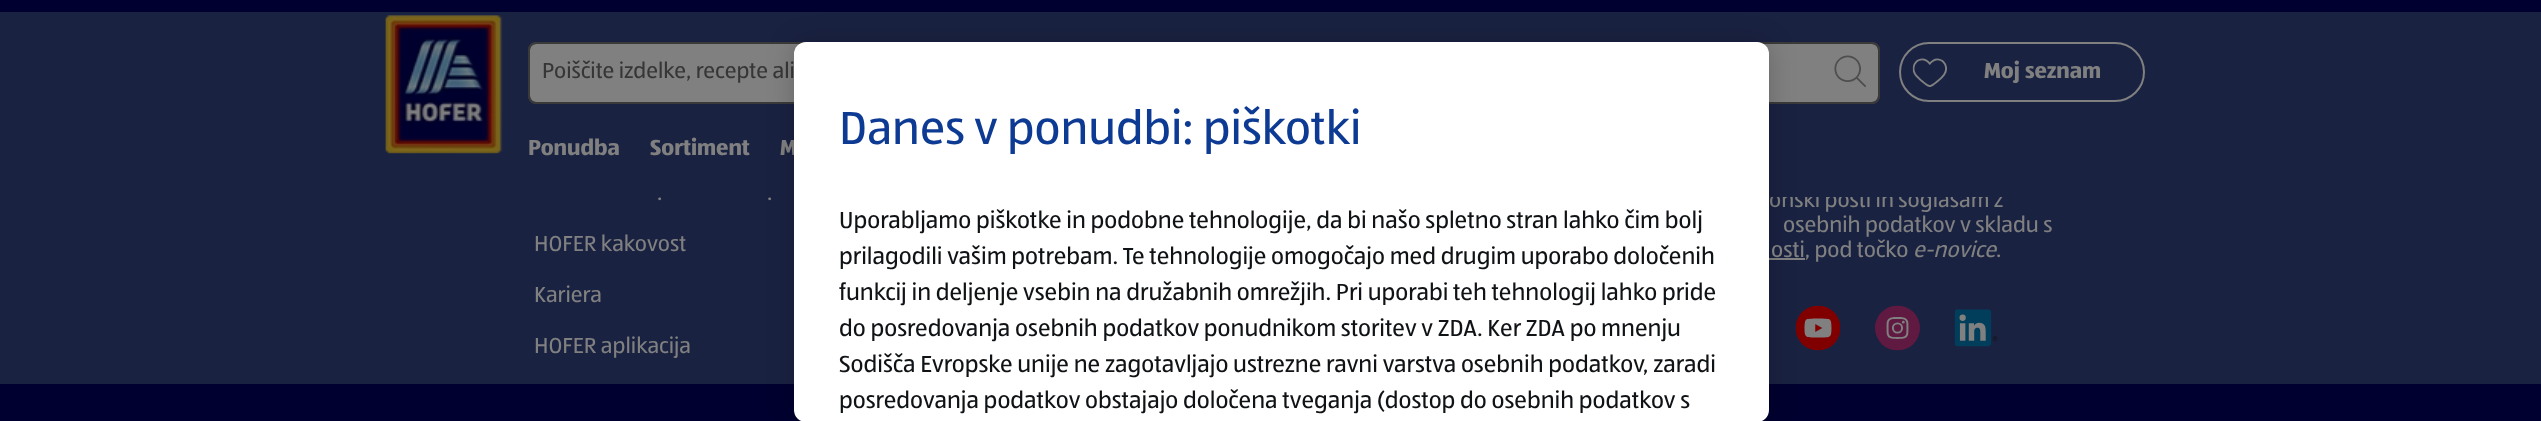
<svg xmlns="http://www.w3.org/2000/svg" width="2541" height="421">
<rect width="100%" height="100%" fill="#1a2242"/>
<text x="1769" y="207" style="font-family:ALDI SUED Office;font-size:22.5px;fill:#808080">onski pošti in soglašam z</text>
<rect x="1771" y="189" width="232" height="8" fill="#1a2242"/>
<rect width="2541" height="12" fill="#000030"/>
<image x="385" y="15" width="118" height="139" href="media/1.png"/>
<rect x="529" y="43" width="1350" height="60" rx="7" fill="#808080" stroke="#3a3a3a" stroke-width="2"/>
<rect x="529" y="43" width="1350" height="60" rx="7" fill="none" stroke="#3a3a3a" stroke-width="2"/>
<text x="542" y="78" style="font-family:ALDI SUED Office;font-size:22.5px;fill:#363636">Poiščite izdelke, recepte ali</text>
<image x="1834" y="55" width="32" height="32" href="media/2.png"/>
<rect x="1900" y="43" width="244" height="58" rx="29" fill="none" stroke="#808080" stroke-width="2"/>
<image x="1912" y="58" width="35" height="29" href="media/3.png"/>
<text x="1984" y="78" style="font-family:ALDI SUED Office;font-size:22.5px;font-weight:bold;fill:#808080">Moj seznam</text>
<text x="528" y="155" style="font-family:ALDI SUED Office;font-size:22.5px;font-weight:bold;fill:#808080">Ponudba</text>
<text x="650" y="155" style="font-family:ALDI SUED Office;font-size:22.5px;font-weight:bold;fill:#808080">Sortiment</text>
<text x="780" y="155" style="font-family:ALDI SUED Office;font-size:22.5px;font-weight:bold;fill:#808080">M</text>
<rect x="1769" y="258" width="36" height="2" fill="#808080"/>
<image x="1795" y="305" width="46" height="46" href="media/4.png"/>
<rect y="384" width="2541" height="37" fill="#000030"/>
<rect x="794" y="42" width="975" height="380" rx="12" fill="#00000033" filter="blur(13.5px)"/>
<rect x="794" y="42" width="975" height="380" rx="12" fill="#fff"/>
<text x="839" y="144" style="font-family:ALDI SUED Office;font-size:48px;fill:#0d3a93">Danes v ponudbi: piškotki</text>
<text x="839" y="228" style="font-family:ALDI SUED Office;font-size:24px;fill:#101316">Uporabljamo piškotke in podobne tehnologije, da bi našo spletno stran lahko čim bolj</text>
<text x="839" y="264" style="font-family:ALDI SUED Office;font-size:24px;fill:#101316">prilagodili vašim potrebam. Te tehnologije omogočajo med drugim uporabo določenih</text>
<text x="839" y="300" style="font-family:ALDI SUED Office;font-size:24px;fill:#101316">funkcij in deljenje vsebin na družabnih omrežjih. Pri uporabi teh tehnologij lahko pride</text>
<text x="839" y="336" style="font-family:ALDI SUED Office;font-size:24px;fill:#101316">do posredovanja osebnih podatkov ponudnikom storitev v ZDA. Ker ZDA po mnenju</text>
<text x="839" y="372" style="font-family:ALDI SUED Office;font-size:24px;fill:#101316">Sodišča Evropske unije ne zagotavljajo ustrezne ravni varstva osebnih podatkov, zaradi</text>
<text x="839" y="408" style="font-family:ALDI SUED Office;font-size:24px;fill:#101316">posredovanja podatkov obstajajo določena tveganja (dostop do osebnih podatkov s</text>
<text x="657" y="200" style="font-family:ALDI SUED Office;font-size:22.5px;fill:#808080">.</text>
<text x="767" y="200" style="font-family:ALDI SUED Office;font-size:22.5px;fill:#808080">.</text>
<text x="534" y="251" style="font-family:ALDI SUED Office;font-size:22.5px;fill:#808080">HOFER kakovost</text>
<text x="534" y="302" style="font-family:ALDI SUED Office;font-size:22.5px;fill:#808080">Kariera</text>
<text x="534" y="353" style="font-family:ALDI SUED Office;font-size:22.5px;fill:#808080">HOFER aplikacija</text>
<text x="1783" y="232" style="font-family:ALDI SUED Office;font-size:22.5px;fill:#808080">osebnih podatkov v skladu s</text>
<text x="1771" y="257" style="font-family:ALDI SUED Office;font-size:22.5px;fill:#808080">osti, pod točko</text>
<text x="1913" y="257" style="font-family:ALDI SUED Office;font-size:22.5px;font-style:italic;fill:#808080">e-novice</text>
<text x="1996" y="257" style="font-family:ALDI SUED Office;font-size:22.5px;fill:#808080">.</text>
<image x="1875" y="305" width="45" height="46" href="media/5.png"/>
<image x="1954" y="309" width="44" height="38" href="media/6.png"/>
</svg>
